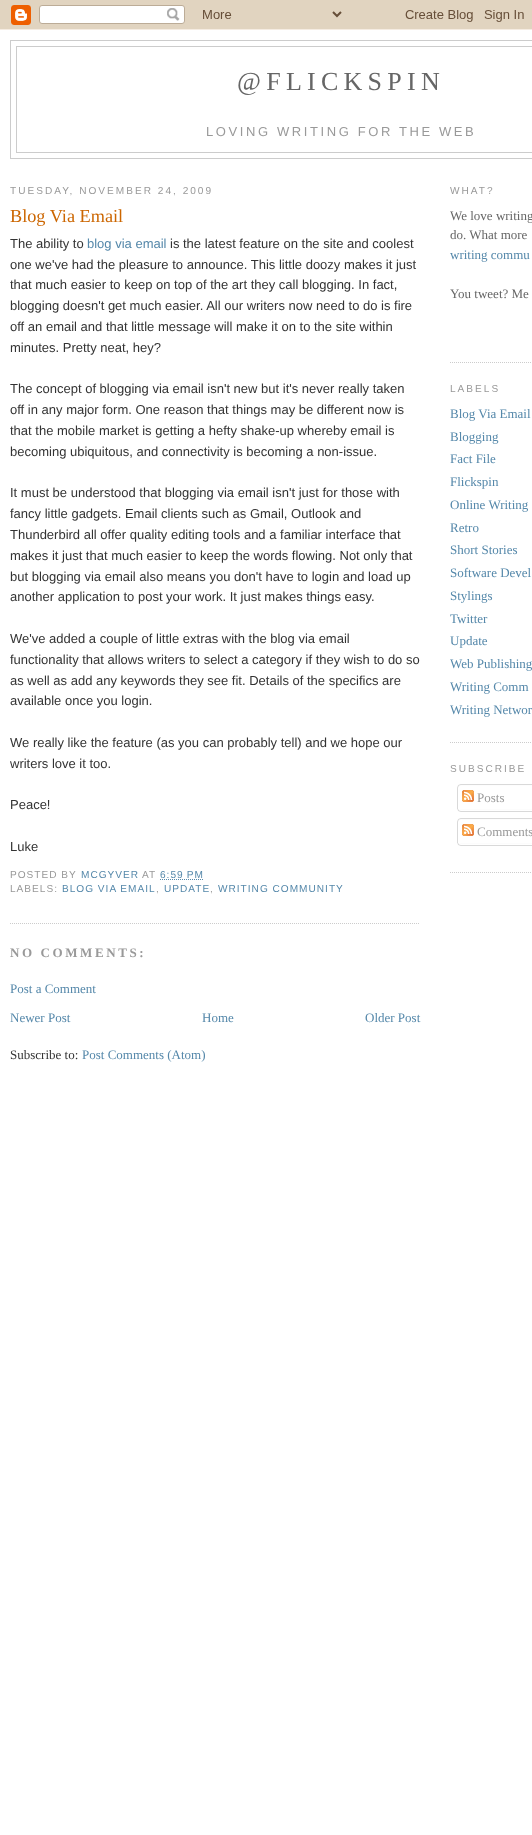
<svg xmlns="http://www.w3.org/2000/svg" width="532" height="1835">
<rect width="100%" height="100%" fill="#fff"/>
<image x="0" y="0" width="532" height="30" href="media/1.png"/>
<rect x="10.5" y="40.5" width="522" height="118" fill="none" stroke="#ccc"/>
<rect x="16.5" y="46.5" width="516" height="106" fill="none" stroke="#ccc"/>
<text x="237" y="90" style="font-family:Liberation Serif;font-size:26px;letter-spacing:5.25px;fill:#666">@FLICKSPIN</text>
<text x="206" y="136" style="font-family:Liberation Sans;font-size:13px;letter-spacing:2.6px;fill:#999">LOVING WRITING FOR THE WEB</text>
<text x="10" y="194" style="font-family:Liberation Sans;font-size:10.1px;letter-spacing:2px;fill:#999">TUESDAY, NOVEMBER 24, 2009</text>
<path d="M10 923.5h410" fill="none" stroke="#ccc" stroke-dasharray="1 1"/>
<text x="10" y="222" style="font-family:Liberation Serif;font-size:18.25px;fill:#c60">Blog Via Email</text>
<text x="10" y="248" style="font-family:Liberation Sans;font-size:13px;fill:#333">The ability to</text>
<text x="87" y="248" style="font-family:Liberation Sans;font-size:13px;fill:#58a">blog via email</text>
<text x="170" y="248" style="font-family:Liberation Sans;font-size:13px;fill:#333">is the latest feature on the site and coolest</text>
<text x="10" y="269" style="font-family:Liberation Sans;font-size:13px;fill:#333">one we've had the pleasure to announce. This little doozy makes it just</text>
<text x="10" y="289" style="font-family:Liberation Sans;font-size:13px;fill:#333">that much easier to keep on top of the art they call blogging. In fact,</text>
<text x="10" y="310" style="font-family:Liberation Sans;font-size:13px;fill:#333">blogging doesn't get much easier. All our writers now need to do is fire</text>
<text x="10" y="331" style="font-family:Liberation Sans;font-size:13px;fill:#333">off an email and that little message will make it on to the site within</text>
<text x="10" y="352" style="font-family:Liberation Sans;font-size:13px;fill:#333">minutes. Pretty neat, hey?</text>
<text x="10" y="393" style="font-family:Liberation Sans;font-size:13px;fill:#333">The concept of blogging via email isn't new but it's never really taken</text>
<text x="10" y="414" style="font-family:Liberation Sans;font-size:13px;fill:#333">off in any major form. One reason that things may be different now is</text>
<text x="10" y="435" style="font-family:Liberation Sans;font-size:13px;fill:#333">that the mobile market is getting a hefty shake-up whereby email is</text>
<text x="10" y="456" style="font-family:Liberation Sans;font-size:13px;fill:#333">becoming ubiquitous, and connectivity is becoming a non-issue.</text>
<text x="10" y="497" style="font-family:Liberation Sans;font-size:13px;fill:#333">It must be understood that blogging via email isn't just for those with</text>
<text x="10" y="518" style="font-family:Liberation Sans;font-size:13px;fill:#333">fancy little gadgets. Email clients such as Gmail, Outlook and</text>
<text x="10" y="539" style="font-family:Liberation Sans;font-size:13px;fill:#333">Thunderbird all offer quality editing tools and a familiar interface that</text>
<text x="10" y="560" style="font-family:Liberation Sans;font-size:13px;fill:#333">makes it just that much easier to keep the words flowing. Not only that</text>
<text x="10" y="581" style="font-family:Liberation Sans;font-size:13px;fill:#333">but blogging via email also means you don't have to login and load up</text>
<text x="10" y="601" style="font-family:Liberation Sans;font-size:13px;fill:#333">another application to post your work. It just makes things easy.</text>
<text x="10" y="643" style="font-family:Liberation Sans;font-size:13px;fill:#333">We've added a couple of little extras with the blog via email</text>
<text x="10" y="664" style="font-family:Liberation Sans;font-size:13px;fill:#333">functionality that allows writers to select a category if they wish to do so</text>
<text x="10" y="685" style="font-family:Liberation Sans;font-size:13px;fill:#333">as well as add any keywords they see fit. Details of the specifics are</text>
<text x="10" y="705" style="font-family:Liberation Sans;font-size:13px;fill:#333">available once you login.</text>
<text x="10" y="747" style="font-family:Liberation Sans;font-size:13px;fill:#333">We really like the feature (as you can probably tell) and we hope our</text>
<text x="10" y="768" style="font-family:Liberation Sans;font-size:13px;fill:#333">writers love it too.</text>
<text x="10" y="809" style="font-family:Liberation Sans;font-size:13px;fill:#333">Peace!</text>
<text x="10" y="851" style="font-family:Liberation Sans;font-size:13px;fill:#333">Luke</text>
<text x="10" y="878" style="font-family:Liberation Sans;font-size:10.1px;letter-spacing:1px;fill:#999">POSTED BY</text>
<text x="81" y="878" style="font-family:Liberation Sans;font-size:10.1px;letter-spacing:1px;fill:#58a">MCGYVER</text>
<text x="142" y="878" style="font-family:Liberation Sans;font-size:10.1px;letter-spacing:1px;fill:#999">AT</text>
<text x="160" y="878" style="font-family:Liberation Sans;font-size:10.1px;letter-spacing:1px;fill:#58a">6:59 PM</text>
<path d="M160 879.5h44" fill="none" stroke="#58a" stroke-dasharray="1 1"/>
<text x="10" y="892" style="font-family:Liberation Sans;font-size:10.1px;letter-spacing:1px;fill:#999">LABELS:</text>
<text x="62" y="892" style="font-family:Liberation Sans;font-size:10.1px;letter-spacing:1px;fill:#58a">BLOG VIA EMAIL</text>
<text x="156" y="892" style="font-family:Liberation Sans;font-size:10.1px;letter-spacing:1px;fill:#999">,</text>
<text x="164" y="892" style="font-family:Liberation Sans;font-size:10.1px;letter-spacing:1px;fill:#58a">UPDATE</text>
<text x="210" y="892" style="font-family:Liberation Sans;font-size:10.1px;letter-spacing:1px;fill:#999">,</text>
<text x="218" y="892" style="font-family:Liberation Sans;font-size:10.1px;letter-spacing:1px;fill:#58a">WRITING COMMUNITY</text>
<text x="10" y="957" style="font-family:Liberation Serif;font-size:13px;font-weight:bold;letter-spacing:2.6px;fill:#999">NO COMMENTS:</text>
<text x="10" y="993" style="font-family:Liberation Serif;font-size:13px;fill:#58a">Post a Comment</text>
<text x="10" y="1022" style="font-family:Liberation Serif;font-size:13px;fill:#58a">Newer Post</text>
<text x="202" y="1022" style="font-family:Liberation Serif;font-size:13px;fill:#58a">Home</text>
<text x="365" y="1022" style="font-family:Liberation Serif;font-size:13px;fill:#58a">Older Post</text>
<text x="10" y="1059" style="font-family:Liberation Serif;font-size:13px;fill:#333">Subscribe to:</text>
<text x="82" y="1059" style="font-family:Liberation Serif;font-size:13px;fill:#58a">Post Comments (Atom)</text>
<path d="M450 362.5h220" fill="none" stroke="#ccc" stroke-dasharray="1 1"/>
<text x="450" y="194" style="font-family:Liberation Sans;font-size:10.1px;letter-spacing:2px;fill:#999">WHAT?</text>
<text x="450" y="220" style="font-family:Liberation Serif;font-size:13px;fill:#666">We love writing</text>
<text x="450" y="239" style="font-family:Liberation Serif;font-size:13px;fill:#666">do. What more</text>
<text x="450" y="259" style="font-family:Liberation Serif;font-size:13px;fill:#58a">writing commu</text>
<text x="450" y="298" style="font-family:Liberation Serif;font-size:13px;fill:#666">You tweet? Me</text>
<path d="M450 742.5h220" fill="none" stroke="#ccc" stroke-dasharray="1 1"/>
<text x="450" y="392" style="font-family:Liberation Sans;font-size:10.1px;letter-spacing:2px;fill:#999">LABELS</text>
<text x="450" y="418" style="font-family:Liberation Serif;font-size:13px;fill:#58a">Blog Via Email</text>
<text x="450" y="441" style="font-family:Liberation Serif;font-size:13px;fill:#58a">Blogging</text>
<text x="450" y="463" style="font-family:Liberation Serif;font-size:13px;fill:#58a">Fact File</text>
<text x="450" y="486" style="font-family:Liberation Serif;font-size:13px;fill:#58a">Flickspin</text>
<text x="450" y="509" style="font-family:Liberation Serif;font-size:13px;fill:#58a">Online Writing</text>
<text x="450" y="532" style="font-family:Liberation Serif;font-size:13px;fill:#58a">Retro</text>
<text x="450" y="554" style="font-family:Liberation Serif;font-size:13px;fill:#58a">Short Stories</text>
<text x="450" y="577" style="font-family:Liberation Serif;font-size:13px;fill:#58a">Software Devel</text>
<text x="450" y="600" style="font-family:Liberation Serif;font-size:13px;fill:#58a">Stylings</text>
<text x="450" y="623" style="font-family:Liberation Serif;font-size:13px;fill:#58a">Twitter</text>
<text x="450" y="645" style="font-family:Liberation Serif;font-size:13px;fill:#58a">Update</text>
<text x="450" y="668" style="font-family:Liberation Serif;font-size:13px;fill:#58a">Web Publishing</text>
<text x="450" y="691" style="font-family:Liberation Serif;font-size:13px;fill:#58a">Writing Comm</text>
<text x="450" y="714" style="font-family:Liberation Serif;font-size:13px;fill:#58a">Writing Networ</text>
<path d="M450 872.5h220" fill="none" stroke="#ccc" stroke-dasharray="1 1"/>
<text x="450" y="772" style="font-family:Liberation Sans;font-size:10.1px;letter-spacing:2px;fill:#999">SUBSCRIBE</text>
<image x="457" y="784" width="75" height="25" href="media/2.png"/>
<image x="462" y="790" width="12" height="12" href="media/3.png"/>
<text x="477" y="802" style="font-family:Liberation Serif;font-size:13px;fill:#999">Posts</text>
<image x="457" y="809" width="75" height="3" href="media/4.png"/>
<image x="457" y="818" width="75" height="25" href="media/2.png"/>
<image x="462" y="824" width="12" height="12" href="media/3.png"/>
<text x="477" y="836" style="font-family:Liberation Serif;font-size:13px;fill:#999">Comments</text>
<image x="457" y="843" width="75" height="3" href="media/4.png"/>
</svg>
